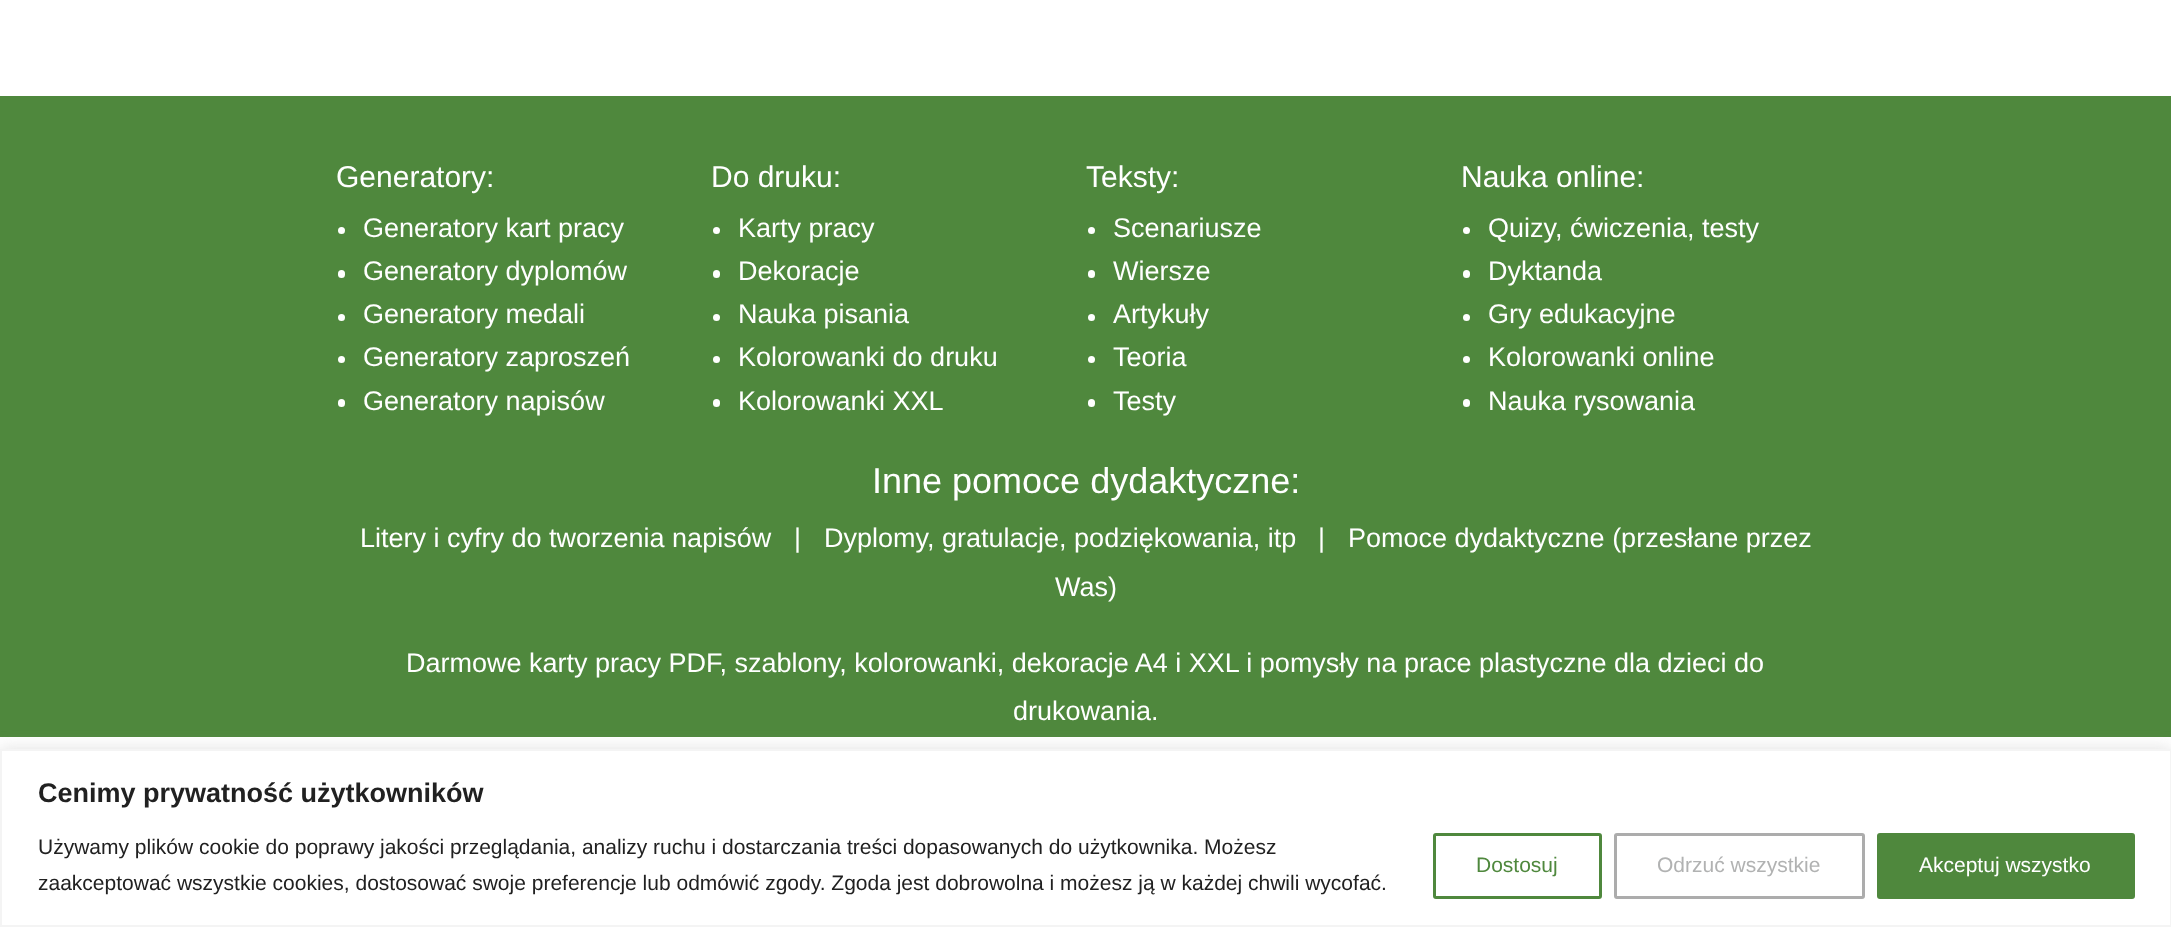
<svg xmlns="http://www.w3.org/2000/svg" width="2171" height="927">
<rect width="100%" height="100%" fill="#fff"/>
<rect y="96" width="2171" height="641" fill="#4f883d"/>
<text x="336" y="187" style="font-family:Liberation Sans;font-size:30px;fill:#fff">Generatory:</text>
<circle cx="341.5" cy="230.5" r="3.5" fill="#fff"/>
<text x="363" y="237" style="font-family:Liberation Sans;font-size:27px;fill:#fff">Generatory kart pracy</text>
<rect x="338" y="270" width="7" height="8" rx="3.5" fill="#fff"/>
<text x="363" y="280" style="font-family:Liberation Sans;font-size:27px;fill:#fff">Generatory dyplomów</text>
<circle cx="341.5" cy="317.5" r="3.5" fill="#fff"/>
<text x="363" y="323" style="font-family:Liberation Sans;font-size:27px;fill:#fff">Generatory medali</text>
<circle cx="341.5" cy="359.5" r="3.5" fill="#fff"/>
<text x="363" y="366" style="font-family:Liberation Sans;font-size:27px;fill:#fff">Generatory zaproszeń</text>
<rect x="338" y="399" width="7" height="8" rx="3.5" fill="#fff"/>
<text x="363" y="410" style="font-family:Liberation Sans;font-size:27px;fill:#fff">Generatory napisów</text>
<text x="711" y="187" style="font-family:Liberation Sans;font-size:30px;fill:#fff">Do druku:</text>
<circle cx="716.5" cy="230.5" r="3.5" fill="#fff"/>
<text x="738" y="237" style="font-family:Liberation Sans;font-size:27px;fill:#fff">Karty pracy</text>
<rect x="713" y="270" width="7" height="8" rx="3.5" fill="#fff"/>
<text x="738" y="280" style="font-family:Liberation Sans;font-size:27px;fill:#fff">Dekoracje</text>
<circle cx="716.5" cy="317.5" r="3.5" fill="#fff"/>
<text x="738" y="323" style="font-family:Liberation Sans;font-size:27px;fill:#fff">Nauka pisania</text>
<circle cx="716.5" cy="359.5" r="3.5" fill="#fff"/>
<text x="738" y="366" style="font-family:Liberation Sans;font-size:27px;fill:#fff">Kolorowanki do druku</text>
<rect x="713" y="399" width="7" height="8" rx="3.5" fill="#fff"/>
<text x="738" y="410" style="font-family:Liberation Sans;font-size:27px;fill:#fff">Kolorowanki XXL</text>
<text x="1086" y="187" style="font-family:Liberation Sans;font-size:30px;fill:#fff">Teksty:</text>
<circle cx="1091.5" cy="230.5" r="3.5" fill="#fff"/>
<text x="1113" y="237" style="font-family:Liberation Sans;font-size:27px;fill:#fff">Scenariusze</text>
<rect x="1088" y="270" width="7" height="8" rx="3.5" fill="#fff"/>
<text x="1113" y="280" style="font-family:Liberation Sans;font-size:27px;fill:#fff">Wiersze</text>
<circle cx="1091.5" cy="317.5" r="3.5" fill="#fff"/>
<text x="1113" y="323" style="font-family:Liberation Sans;font-size:27px;fill:#fff">Artykuły</text>
<circle cx="1091.5" cy="359.5" r="3.5" fill="#fff"/>
<text x="1113" y="366" style="font-family:Liberation Sans;font-size:27px;fill:#fff">Teoria</text>
<rect x="1088" y="399" width="7" height="8" rx="3.5" fill="#fff"/>
<text x="1113" y="410" style="font-family:Liberation Sans;font-size:27px;fill:#fff">Testy</text>
<text x="1461" y="187" style="font-family:Liberation Sans;font-size:30px;fill:#fff">Nauka online:</text>
<circle cx="1466.5" cy="230.5" r="3.5" fill="#fff"/>
<text x="1488" y="237" style="font-family:Liberation Sans;font-size:27px;fill:#fff">Quizy, ćwiczenia, testy</text>
<rect x="1463" y="270" width="7" height="8" rx="3.5" fill="#fff"/>
<text x="1488" y="280" style="font-family:Liberation Sans;font-size:27px;fill:#fff">Dyktanda</text>
<circle cx="1466.5" cy="317.5" r="3.5" fill="#fff"/>
<text x="1488" y="323" style="font-family:Liberation Sans;font-size:27px;fill:#fff">Gry edukacyjne</text>
<circle cx="1466.5" cy="359.5" r="3.5" fill="#fff"/>
<text x="1488" y="366" style="font-family:Liberation Sans;font-size:27px;fill:#fff">Kolorowanki online</text>
<rect x="1463" y="399" width="7" height="8" rx="3.5" fill="#fff"/>
<text x="1488" y="410" style="font-family:Liberation Sans;font-size:27px;fill:#fff">Nauka rysowania</text>
<text x="872" y="493" style="font-family:Liberation Sans;font-size:36px;fill:#fff">Inne pomoce dydaktyczne:</text>
<text x="360" y="547" style="font-family:Liberation Sans;font-size:27px;fill:#fff">Litery i cyfry do tworzenia napisów</text>
<text x="794" y="547" style="font-family:Liberation Sans;font-size:27px;fill:#fff">|</text>
<text x="824" y="547" style="font-family:Liberation Sans;font-size:27px;fill:#fff">Dyplomy, gratulacje, podziękowania, itp</text>
<text x="1318" y="547" style="font-family:Liberation Sans;font-size:27px;fill:#fff">|</text>
<text x="1348" y="547" style="font-family:Liberation Sans;font-size:27px;fill:#fff">Pomoce dydaktyczne (przesłane przez</text>
<text x="1055" y="596" style="font-family:Liberation Sans;font-size:27px;fill:#fff">Was)</text>
<text x="406" y="672" style="font-family:Liberation Sans;font-size:27px;fill:#fff">Darmowe karty pracy PDF, szablony, kolorowanki, dekoracje A4 i XXL i pomysły na prace plastyczne dla dzieci do</text>
<text x="1013" y="720" style="font-family:Liberation Sans;font-size:27px;fill:#fff">drukowania.</text>
<rect y="747" width="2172" height="179" fill="#acabab4d" filter="blur(7.5px)"/>
<rect x="1" y="750" width="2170" height="176" fill="#fff" stroke="#f4f4f4" stroke-width="2"/>
<text x="38" y="802" style="font-family:Liberation Sans;font-size:27px;font-weight:bold;fill:#212121">Cenimy prywatność użytkowników</text>
<text x="38" y="854" style="font-family:Liberation Sans;font-size:21px;fill:#212121">Używamy plików cookie do poprawy jakości przeglądania, analizy ruchu i dostarczania treści dopasowanych do użytkownika. Możesz</text>
<text x="38" y="890" style="font-family:Liberation Sans;font-size:21px;fill:#212121">zaakceptować wszystkie cookies, dostosować swoje preferencje lub odmówić zgody. Zgoda jest dobrowolna i możesz ją w każdej chwili wycofać.</text>
<rect x="1434.5" y="834.5" width="166" height="63" rx="1.5" fill="none" stroke="#4f883d" stroke-width="3"/>
<text x="1476" y="872" style="font-family:Liberation Sans;font-size:21px;fill:#4f883d">Dostosuj</text>
<rect x="1615.5" y="834.5" width="248" height="63" rx="1.5" fill="none" stroke="#acacac" stroke-width="3"/>
<text x="1657" y="872" style="font-family:Liberation Sans;font-size:21px;fill:#b1b2b2">Odrzuć wszystkie</text>
<rect x="1878.5" y="834.5" width="255" height="63" rx="1.5" fill="#4f883d" stroke="#4f883d" stroke-width="3"/>
<text x="1919" y="872" style="font-family:Liberation Sans;font-size:21px;fill:#fff">Akceptuj wszystko</text>
</svg>
